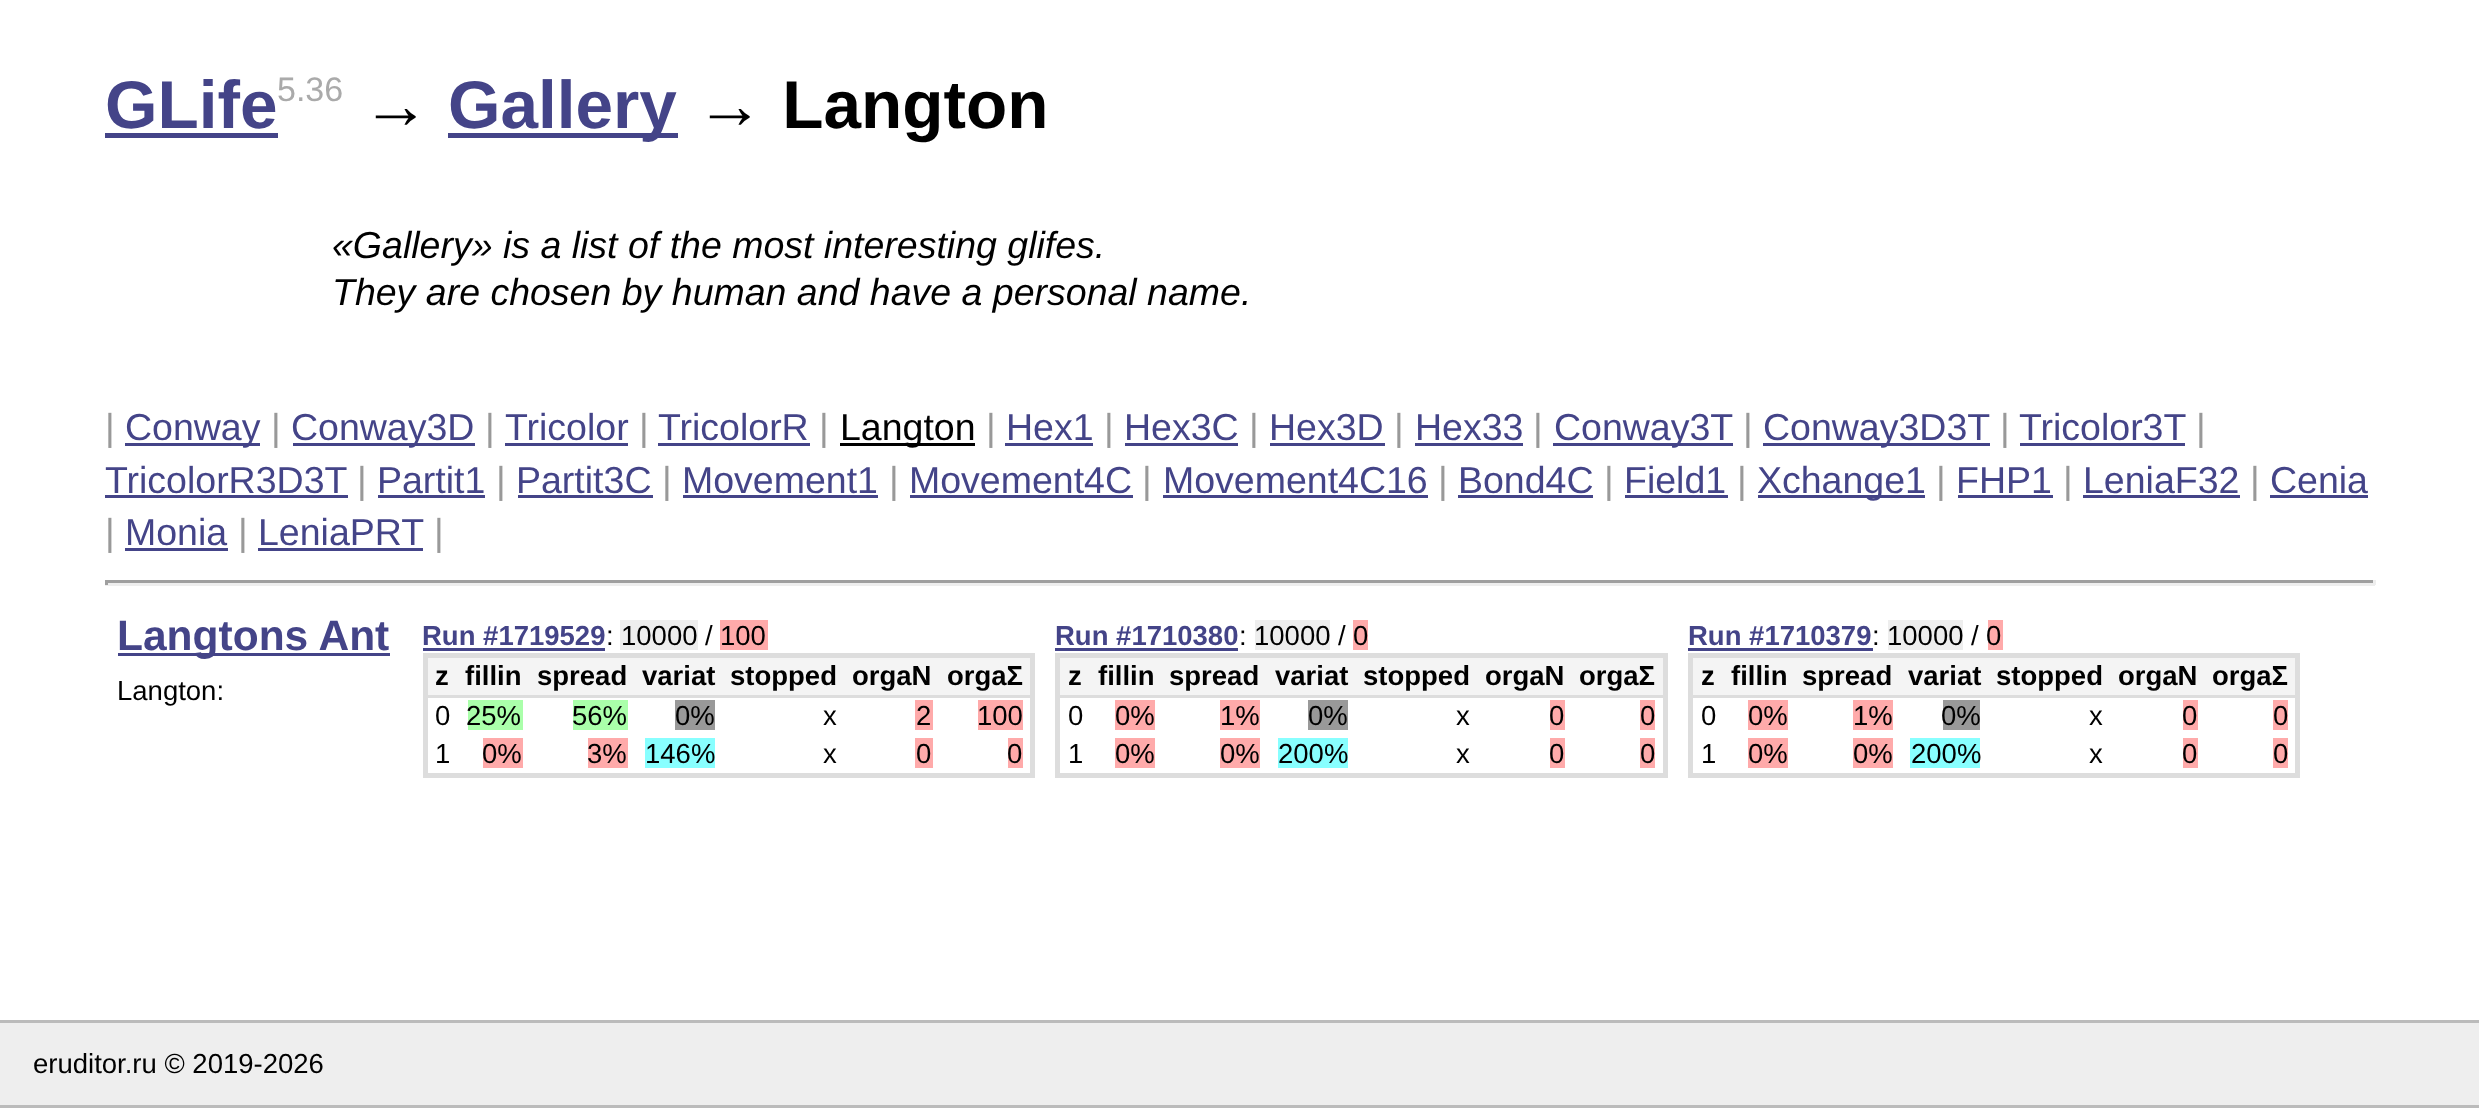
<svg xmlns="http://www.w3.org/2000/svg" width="2479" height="1108">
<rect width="100%" height="100%" fill="#fff"/>
<text x="105" y="128" style="font-family:Liberation Sans;font-size:67.5px;font-weight:bold;fill:#448">GLife</text>
<rect x="105" y="133" width="173" height="5" fill="#448"/>
<text x="277" y="101" style="font-family:Liberation Sans;font-size:34px;fill:#aaa">5.36</text>
<text x="362" y="128" style="font-family:Liberation Sans;font-size:67.5px;font-weight:bold;fill:#000">→</text>
<rect x="448" y="133" width="230" height="5" fill="#448"/>
<text x="448" y="128" style="font-family:Liberation Sans;font-size:67.5px;font-weight:bold;fill:#448">Gallery</text>
<text x="696" y="128" style="font-family:Liberation Sans;font-size:67.5px;font-weight:bold;fill:#000">→ Langton</text>
<text x="332" y="258" style="font-family:Liberation Sans;font-size:37.5px;font-style:italic;fill:#000">«Gallery» is a list of the most interesting glifes.</text>
<text x="332" y="305" style="font-family:Liberation Sans;font-size:37.5px;font-style:italic;fill:#000">They are chosen by human and have a personal name.</text>
<text x="105" y="440" style="font-family:Liberation Sans;font-size:37.5px;fill:#999">|</text>
<rect x="125" y="443" width="135" height="3" fill="#448"/>
<text x="125" y="440" style="font-family:Liberation Sans;font-size:37.5px;fill:#448">Conway</text>
<text x="271" y="440" style="font-family:Liberation Sans;font-size:37.5px;fill:#999">|</text>
<rect x="293" y="443" width="182" height="3" fill="#448"/>
<text x="291" y="440" style="font-family:Liberation Sans;font-size:37.5px;fill:#448">Conway3D</text>
<text x="485" y="440" style="font-family:Liberation Sans;font-size:37.5px;fill:#999">|</text>
<text x="505" y="440" style="font-family:Liberation Sans;font-size:37.5px;fill:#448">Tricolor</text>
<rect x="505" y="443" width="123" height="3" fill="#448"/>
<text x="639" y="440" style="font-family:Liberation Sans;font-size:37.5px;fill:#999">|</text>
<text x="658" y="440" style="font-family:Liberation Sans;font-size:37.5px;fill:#448">TricolorR</text>
<rect x="658" y="443" width="152" height="3" fill="#448"/>
<text x="819" y="440" style="font-family:Liberation Sans;font-size:37.5px;fill:#999">|</text>
<rect x="840" y="443" width="135" height="3" fill="#000"/>
<text x="840" y="440" style="font-family:Liberation Sans;font-size:37.5px;fill:#000">Langton</text>
<text x="986" y="440" style="font-family:Liberation Sans;font-size:37.5px;fill:#999">|</text>
<text x="1006" y="440" style="font-family:Liberation Sans;font-size:37.5px;fill:#448">Hex1</text>
<rect x="1005" y="443" width="88" height="3" fill="#448"/>
<text x="1104" y="440" style="font-family:Liberation Sans;font-size:37.5px;fill:#999">|</text>
<text x="1124" y="440" style="font-family:Liberation Sans;font-size:37.5px;fill:#448">Hex3C</text>
<rect x="1125" y="443" width="113" height="3" fill="#448"/>
<text x="1249" y="440" style="font-family:Liberation Sans;font-size:37.5px;fill:#999">|</text>
<text x="1269" y="440" style="font-family:Liberation Sans;font-size:37.5px;fill:#448">Hex3D</text>
<rect x="1270" y="443" width="115" height="3" fill="#448"/>
<text x="1394" y="440" style="font-family:Liberation Sans;font-size:37.5px;fill:#999">|</text>
<text x="1415" y="440" style="font-family:Liberation Sans;font-size:37.5px;fill:#448">Hex33</text>
<rect x="1415" y="443" width="108" height="3" fill="#448"/>
<text x="1533" y="440" style="font-family:Liberation Sans;font-size:37.5px;fill:#999">|</text>
<rect x="1553" y="443" width="180" height="3" fill="#448"/>
<text x="1554" y="440" style="font-family:Liberation Sans;font-size:37.5px;fill:#448">Conway3T</text>
<text x="1743" y="440" style="font-family:Liberation Sans;font-size:37.5px;fill:#999">|</text>
<rect x="1763" y="443" width="227" height="3" fill="#448"/>
<text x="1763" y="440" style="font-family:Liberation Sans;font-size:37.5px;fill:#448">Conway3D3T</text>
<text x="2000" y="440" style="font-family:Liberation Sans;font-size:37.5px;fill:#999">|</text>
<text x="2019" y="440" style="font-family:Liberation Sans;font-size:37.5px;fill:#448">Tricolor3T</text>
<rect x="2020" y="443" width="165" height="3" fill="#448"/>
<text x="2196" y="440" style="font-family:Liberation Sans;font-size:37.5px;fill:#999">|</text>
<text x="105" y="493" style="font-family:Liberation Sans;font-size:37.5px;fill:#448">TricolorR3D3T</text>
<rect x="105" y="495" width="243" height="3" fill="#448"/>
<text x="357" y="493" style="font-family:Liberation Sans;font-size:37.5px;fill:#999">|</text>
<text x="377" y="493" style="font-family:Liberation Sans;font-size:37.5px;fill:#448">Partit1</text>
<rect x="378" y="495" width="107" height="3" fill="#448"/>
<text x="496" y="493" style="font-family:Liberation Sans;font-size:37.5px;fill:#999">|</text>
<text x="516" y="493" style="font-family:Liberation Sans;font-size:37.5px;fill:#448">Partit3C</text>
<rect x="518" y="495" width="135" height="3" fill="#448"/>
<text x="662" y="493" style="font-family:Liberation Sans;font-size:37.5px;fill:#999">|</text>
<text x="682" y="493" style="font-family:Liberation Sans;font-size:37.5px;fill:#448">Movement1</text>
<rect x="683" y="495" width="195" height="3" fill="#448"/>
<text x="889" y="493" style="font-family:Liberation Sans;font-size:37.5px;fill:#999">|</text>
<text x="909" y="493" style="font-family:Liberation Sans;font-size:37.5px;fill:#448">Movement4C</text>
<rect x="910" y="495" width="223" height="3" fill="#448"/>
<text x="1142" y="493" style="font-family:Liberation Sans;font-size:37.5px;fill:#999">|</text>
<text x="1163" y="493" style="font-family:Liberation Sans;font-size:37.5px;fill:#448">Movement4C16</text>
<rect x="1163" y="495" width="265" height="3" fill="#448"/>
<text x="1438" y="493" style="font-family:Liberation Sans;font-size:37.5px;fill:#999">|</text>
<text x="1458" y="493" style="font-family:Liberation Sans;font-size:37.5px;fill:#448">Bond4C</text>
<rect x="1458" y="495" width="135" height="3" fill="#448"/>
<text x="1604" y="493" style="font-family:Liberation Sans;font-size:37.5px;fill:#999">|</text>
<text x="1624" y="493" style="font-family:Liberation Sans;font-size:37.5px;fill:#448">Field1</text>
<rect x="1625" y="495" width="103" height="3" fill="#448"/>
<text x="1737" y="493" style="font-family:Liberation Sans;font-size:37.5px;fill:#999">|</text>
<rect x="1758" y="495" width="167" height="3" fill="#448"/>
<text x="1757" y="493" style="font-family:Liberation Sans;font-size:37.5px;fill:#448">Xchange1</text>
<text x="1936" y="493" style="font-family:Liberation Sans;font-size:37.5px;fill:#999">|</text>
<text x="1956" y="493" style="font-family:Liberation Sans;font-size:37.5px;fill:#448">FHP1</text>
<rect x="1958" y="495" width="95" height="3" fill="#448"/>
<text x="2063" y="493" style="font-family:Liberation Sans;font-size:37.5px;fill:#999">|</text>
<text x="2083" y="493" style="font-family:Liberation Sans;font-size:37.5px;fill:#448">LeniaF32</text>
<rect x="2083" y="495" width="157" height="3" fill="#448"/>
<text x="2250" y="493" style="font-family:Liberation Sans;font-size:37.5px;fill:#999">|</text>
<text x="2270" y="493" style="font-family:Liberation Sans;font-size:37.5px;fill:#448">Cenia</text>
<rect x="2270" y="495" width="98" height="3" fill="#448"/>
<text x="105" y="545" style="font-family:Liberation Sans;font-size:37.5px;fill:#999">|</text>
<text x="125" y="545" style="font-family:Liberation Sans;font-size:37.5px;fill:#448">Monia</text>
<rect x="125" y="548" width="103" height="3" fill="#448"/>
<text x="238" y="545" style="font-family:Liberation Sans;font-size:37.5px;fill:#999">|</text>
<text x="258" y="545" style="font-family:Liberation Sans;font-size:37.5px;fill:#448">LeniaPRT</text>
<rect x="258" y="548" width="165" height="3" fill="#448"/>
<text x="434" y="545" style="font-family:Liberation Sans;font-size:37.5px;fill:#999">|</text>
<rect x="105" y="580" width="2270" height="3" fill="#9f9f9f"/>
<rect x="2373" y="580" width="3" height="5" fill="#eee"/>
<rect x="105" y="583" width="2270" height="3" fill="#eee"/>
<rect x="105" y="580" width="3" height="5" fill="#9f9f9f"/>
<rect x="118" y="653" width="272" height="3" fill="#448"/>
<text x="117" y="650" style="font-family:Liberation Sans;font-size:42.5px;font-weight:bold;fill:#448">Langtons Ant</text>
<text x="117" y="700" style="font-family:Liberation Sans;font-size:27.5px;fill:#000">Langton:</text>
<text x="422" y="645" style="font-family:Liberation Sans;font-size:27.5px;font-weight:bold;fill:#448">Run #1719529</text>
<rect x="423" y="648" width="182" height="3" fill="#448"/>
<text x="606" y="645" style="font-family:Liberation Sans;font-size:27.5px;fill:#000">:</text>
<rect x="620" y="620" width="78" height="30" fill="#eee"/>
<text x="621" y="645" style="font-family:Liberation Sans;font-size:27.5px;fill:#000">10000 /</text>
<rect x="720" y="620" width="48" height="30" fill="#faa"/>
<text x="720" y="645" style="font-family:Liberation Sans;font-size:27.5px;fill:#000">100</text>
<rect x="425.5" y="655.5" width="607" height="120" fill="none" stroke="#ddd" stroke-width="5"/>
<rect x="428" y="658" width="602" height="37" fill="#f4f4f4"/>
<rect x="428" y="695" width="602" height="3" fill="#ddd"/>
<text x="435" y="685" style="font-family:Liberation Sans;font-size:27.5px;font-weight:bold;fill:#000">z</text>
<text x="465" y="685" style="font-family:Liberation Sans;font-size:27.5px;font-weight:bold;fill:#000">fillin</text>
<text x="537" y="685" style="font-family:Liberation Sans;font-size:27.5px;font-weight:bold;fill:#000">spread</text>
<text x="642" y="685" style="font-family:Liberation Sans;font-size:27.5px;font-weight:bold;fill:#000">variat</text>
<text x="730" y="685" style="font-family:Liberation Sans;font-size:27.5px;font-weight:bold;fill:#000">stopped</text>
<text x="852" y="685" style="font-family:Liberation Sans;font-size:27.5px;font-weight:bold;fill:#000">orgaN</text>
<text x="947" y="685" style="font-family:Liberation Sans;font-size:27.5px;font-weight:bold;fill:#000">orgaΣ</text>
<text x="435" y="725" style="font-family:Liberation Sans;font-size:27.5px;fill:#000">0</text>
<rect x="468" y="700" width="55" height="30" fill="#afa"/>
<text x="466" y="725" style="font-family:Liberation Sans;font-size:27.5px;fill:#000">25%</text>
<rect x="573" y="700" width="55" height="30" fill="#afa"/>
<text x="572" y="725" style="font-family:Liberation Sans;font-size:27.5px;fill:#000">56%</text>
<rect x="675" y="700" width="40" height="30" fill="#999"/>
<text x="675" y="725" style="font-family:Liberation Sans;font-size:27.5px;fill:#000">0%</text>
<text x="823" y="725" style="font-family:Liberation Sans;font-size:27.5px;fill:#000">x</text>
<rect x="915" y="700" width="18" height="30" fill="#faa"/>
<text x="916" y="725" style="font-family:Liberation Sans;font-size:27.5px;fill:#000">2</text>
<rect x="978" y="700" width="45" height="30" fill="#faa"/>
<text x="977" y="725" style="font-family:Liberation Sans;font-size:27.5px;fill:#000">100</text>
<text x="435" y="763" style="font-family:Liberation Sans;font-size:27.5px;fill:#000">1</text>
<rect x="483" y="738" width="40" height="30" fill="#faa"/>
<text x="482" y="763" style="font-family:Liberation Sans;font-size:27.5px;fill:#000">0%</text>
<rect x="588" y="738" width="40" height="30" fill="#faa"/>
<text x="587" y="763" style="font-family:Liberation Sans;font-size:27.5px;fill:#000">3%</text>
<rect x="645" y="738" width="70" height="30" fill="#8ff"/>
<text x="645" y="763" style="font-family:Liberation Sans;font-size:27.5px;fill:#000">146%</text>
<text x="823" y="763" style="font-family:Liberation Sans;font-size:27.5px;fill:#000">x</text>
<rect x="915" y="738" width="18" height="30" fill="#faa"/>
<text x="916" y="763" style="font-family:Liberation Sans;font-size:27.5px;fill:#000">0</text>
<rect x="1008" y="738" width="15" height="30" fill="#faa"/>
<text x="1007" y="763" style="font-family:Liberation Sans;font-size:27.5px;fill:#000">0</text>
<text x="1055" y="645" style="font-family:Liberation Sans;font-size:27.5px;font-weight:bold;fill:#448">Run #1710380</text>
<rect x="1055" y="648" width="183" height="3" fill="#448"/>
<text x="1239" y="645" style="font-family:Liberation Sans;font-size:27.5px;fill:#000">:</text>
<rect x="1255" y="620" width="75" height="30" fill="#eee"/>
<text x="1254" y="645" style="font-family:Liberation Sans;font-size:27.5px;fill:#000">10000 /</text>
<rect x="1353" y="620" width="15" height="30" fill="#faa"/>
<text x="1353" y="645" style="font-family:Liberation Sans;font-size:27.5px;fill:#000">0</text>
<rect x="1057.5" y="655.5" width="608" height="120" fill="none" stroke="#ddd" stroke-width="5"/>
<rect x="1060" y="658" width="603" height="37" fill="#f4f4f4"/>
<rect x="1060" y="695" width="603" height="3" fill="#ddd"/>
<text x="1068" y="685" style="font-family:Liberation Sans;font-size:27.5px;font-weight:bold;fill:#000">z</text>
<text x="1098" y="685" style="font-family:Liberation Sans;font-size:27.5px;font-weight:bold;fill:#000">fillin</text>
<text x="1169" y="685" style="font-family:Liberation Sans;font-size:27.5px;font-weight:bold;fill:#000">spread</text>
<text x="1275" y="685" style="font-family:Liberation Sans;font-size:27.5px;font-weight:bold;fill:#000">variat</text>
<text x="1363" y="685" style="font-family:Liberation Sans;font-size:27.5px;font-weight:bold;fill:#000">stopped</text>
<text x="1485" y="685" style="font-family:Liberation Sans;font-size:27.5px;font-weight:bold;fill:#000">orgaN</text>
<text x="1579" y="685" style="font-family:Liberation Sans;font-size:27.5px;font-weight:bold;fill:#000">orgaΣ</text>
<text x="1068" y="725" style="font-family:Liberation Sans;font-size:27.5px;fill:#000">0</text>
<rect x="1115" y="700" width="40" height="30" fill="#faa"/>
<text x="1115" y="725" style="font-family:Liberation Sans;font-size:27.5px;fill:#000">0%</text>
<rect x="1220" y="700" width="40" height="30" fill="#faa"/>
<text x="1220" y="725" style="font-family:Liberation Sans;font-size:27.5px;fill:#000">1%</text>
<rect x="1308" y="700" width="40" height="30" fill="#999"/>
<text x="1308" y="725" style="font-family:Liberation Sans;font-size:27.5px;fill:#000">0%</text>
<text x="1456" y="725" style="font-family:Liberation Sans;font-size:27.5px;fill:#000">x</text>
<rect x="1550" y="700" width="15" height="30" fill="#faa"/>
<text x="1549" y="725" style="font-family:Liberation Sans;font-size:27.5px;fill:#000">0</text>
<rect x="1640" y="700" width="15" height="30" fill="#faa"/>
<text x="1640" y="725" style="font-family:Liberation Sans;font-size:27.5px;fill:#000">0</text>
<text x="1068" y="763" style="font-family:Liberation Sans;font-size:27.5px;fill:#000">1</text>
<rect x="1115" y="738" width="40" height="30" fill="#faa"/>
<text x="1115" y="763" style="font-family:Liberation Sans;font-size:27.5px;fill:#000">0%</text>
<rect x="1220" y="738" width="40" height="30" fill="#faa"/>
<text x="1220" y="763" style="font-family:Liberation Sans;font-size:27.5px;fill:#000">0%</text>
<rect x="1278" y="738" width="70" height="30" fill="#8ff"/>
<text x="1278" y="763" style="font-family:Liberation Sans;font-size:27.5px;fill:#000">200%</text>
<text x="1456" y="763" style="font-family:Liberation Sans;font-size:27.5px;fill:#000">x</text>
<rect x="1550" y="738" width="15" height="30" fill="#faa"/>
<text x="1549" y="763" style="font-family:Liberation Sans;font-size:27.5px;fill:#000">0</text>
<rect x="1640" y="738" width="15" height="30" fill="#faa"/>
<text x="1640" y="763" style="font-family:Liberation Sans;font-size:27.5px;fill:#000">0</text>
<text x="1688" y="645" style="font-family:Liberation Sans;font-size:27.5px;font-weight:bold;fill:#448">Run #1710379</text>
<rect x="1688" y="648" width="185" height="3" fill="#448"/>
<text x="1872" y="645" style="font-family:Liberation Sans;font-size:27.5px;fill:#000">:</text>
<rect x="1888" y="620" width="75" height="30" fill="#eee"/>
<text x="1887" y="645" style="font-family:Liberation Sans;font-size:27.5px;fill:#000">10000 /</text>
<rect x="1988" y="620" width="15" height="30" fill="#faa"/>
<text x="1986" y="645" style="font-family:Liberation Sans;font-size:27.5px;fill:#000">0</text>
<rect x="1690.5" y="655.5" width="607" height="120" fill="none" stroke="#ddd" stroke-width="5"/>
<rect x="1693" y="658" width="602" height="37" fill="#f4f4f4"/>
<rect x="1693" y="695" width="602" height="3" fill="#ddd"/>
<text x="1701" y="685" style="font-family:Liberation Sans;font-size:27.5px;font-weight:bold;fill:#000">z</text>
<text x="1731" y="685" style="font-family:Liberation Sans;font-size:27.5px;font-weight:bold;fill:#000">fillin</text>
<text x="1802" y="685" style="font-family:Liberation Sans;font-size:27.5px;font-weight:bold;fill:#000">spread</text>
<text x="1908" y="685" style="font-family:Liberation Sans;font-size:27.5px;font-weight:bold;fill:#000">variat</text>
<text x="1996" y="685" style="font-family:Liberation Sans;font-size:27.5px;font-weight:bold;fill:#000">stopped</text>
<text x="2118" y="685" style="font-family:Liberation Sans;font-size:27.5px;font-weight:bold;fill:#000">orgaN</text>
<text x="2212" y="685" style="font-family:Liberation Sans;font-size:27.5px;font-weight:bold;fill:#000">orgaΣ</text>
<text x="1701" y="725" style="font-family:Liberation Sans;font-size:27.5px;fill:#000">0</text>
<rect x="1748" y="700" width="40" height="30" fill="#faa"/>
<text x="1748" y="725" style="font-family:Liberation Sans;font-size:27.5px;fill:#000">0%</text>
<rect x="1853" y="700" width="40" height="30" fill="#faa"/>
<text x="1853" y="725" style="font-family:Liberation Sans;font-size:27.5px;fill:#000">1%</text>
<rect x="1943" y="700" width="37" height="30" fill="#999"/>
<text x="1941" y="725" style="font-family:Liberation Sans;font-size:27.5px;fill:#000">0%</text>
<text x="2089" y="725" style="font-family:Liberation Sans;font-size:27.5px;fill:#000">x</text>
<rect x="2183" y="700" width="15" height="30" fill="#faa"/>
<text x="2182" y="725" style="font-family:Liberation Sans;font-size:27.5px;fill:#000">0</text>
<rect x="2273" y="700" width="15" height="30" fill="#faa"/>
<text x="2273" y="725" style="font-family:Liberation Sans;font-size:27.5px;fill:#000">0</text>
<text x="1701" y="763" style="font-family:Liberation Sans;font-size:27.5px;fill:#000">1</text>
<rect x="1748" y="738" width="40" height="30" fill="#faa"/>
<text x="1748" y="763" style="font-family:Liberation Sans;font-size:27.5px;fill:#000">0%</text>
<rect x="1853" y="738" width="40" height="30" fill="#faa"/>
<text x="1853" y="763" style="font-family:Liberation Sans;font-size:27.5px;fill:#000">0%</text>
<rect x="1910" y="738" width="70" height="30" fill="#8ff"/>
<text x="1911" y="763" style="font-family:Liberation Sans;font-size:27.5px;fill:#000">200%</text>
<text x="2089" y="763" style="font-family:Liberation Sans;font-size:27.5px;fill:#000">x</text>
<rect x="2183" y="738" width="15" height="30" fill="#faa"/>
<text x="2182" y="763" style="font-family:Liberation Sans;font-size:27.5px;fill:#000">0</text>
<rect x="2273" y="738" width="15" height="30" fill="#faa"/>
<text x="2273" y="763" style="font-family:Liberation Sans;font-size:27.5px;fill:#000">0</text>
<rect y="1023" width="2479" height="82" fill="#eee"/>
<rect y="1020" width="2479" height="3" fill="#bbb"/>
<rect y="1105" width="2479" height="3" fill="#bbb"/>
<text x="33" y="1073" style="font-family:Liberation Sans;font-size:27.5px;fill:#000">eruditor.ru © 2019-2026</text>
</svg>
